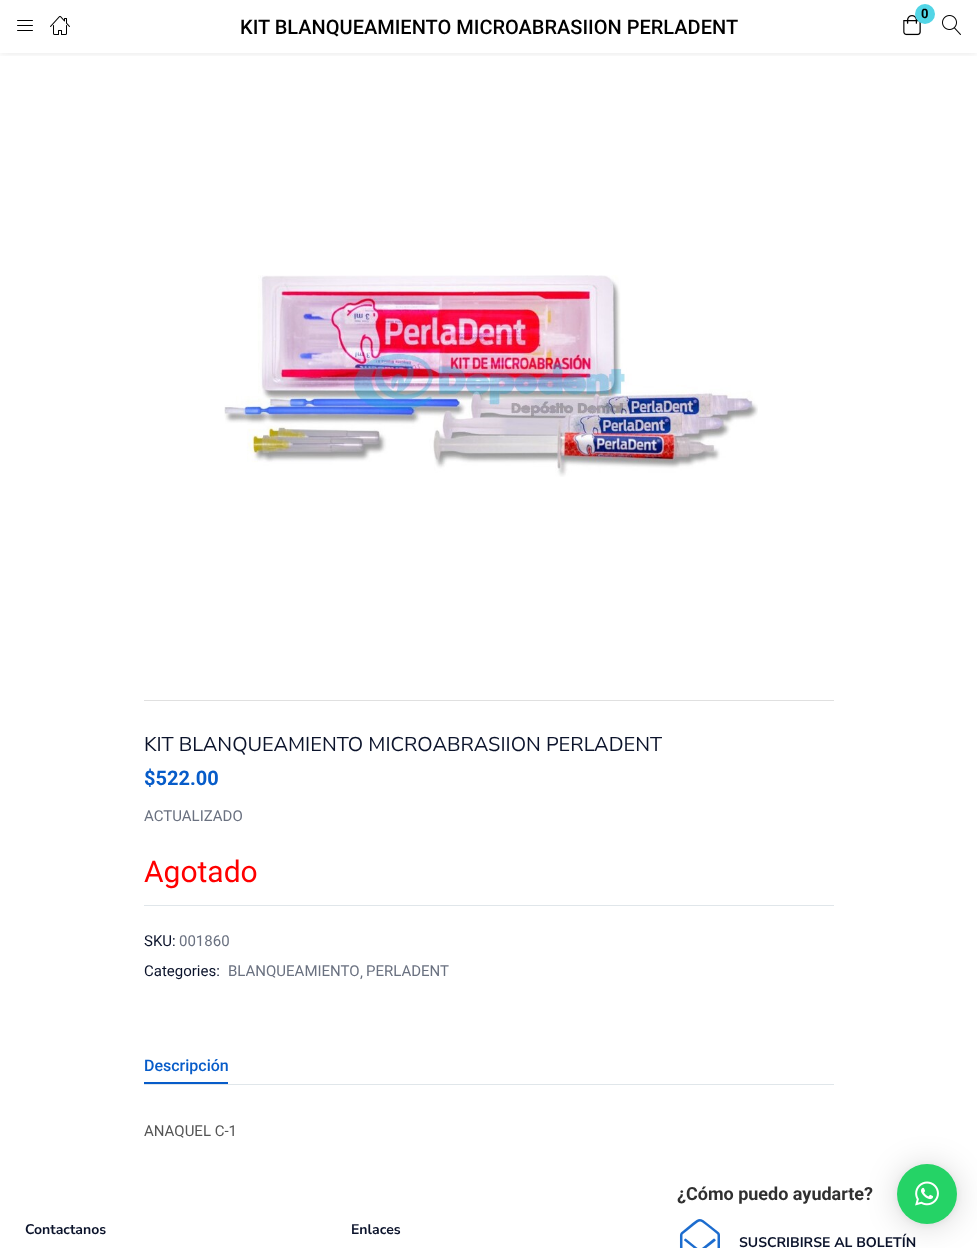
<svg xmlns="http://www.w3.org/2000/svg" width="977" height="1248">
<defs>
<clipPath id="clip1"><rect x="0" y="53" width="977" height="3"/></clipPath>
</defs>
<rect width="100%" height="100%" fill="#fff"/>
<g clip-path="url(#clip1)">
<rect width="977" height="53" fill="#0000001a" filter="blur(4px)"/>
</g>
<image x="903" y="15" width="18" height="21" href="media/1.png"/>
<circle cx="925" cy="14" r="10" fill="#52d5e6"/>
<text x="921" y="18" style="font-family:Roboto;font-size:13px;font-weight:bold;fill:#000">0</text>
<image x="17" y="20" width="16" height="11" href="media/2.png"/>
<image x="50" y="16" width="20" height="19" href="media/3.png"/>
<text x="240" y="34" style="font-family:Roboto;font-size:20px;font-weight:500;fill:#000">KIT BLANQUEAMIENTO MICROABRASIION PERLADENT</text>
<image x="942" y="15" width="19" height="20" href="media/4.png"/>
<image x="224" y="275" width="534" height="202" href="media/5.png"/>
<rect x="144" y="700" width="690" height="1" fill="#e0e0e0"/>
<text x="144" y="751" style="font-family:Nunito Sans;font-size:20px;fill:#0b132b">KIT BLANQUEAMIENTO MICROABRASIION PERLADENT</text>
<text x="144" y="785" style="font-family:Roboto;font-size:20px;font-weight:bold;fill:#075cc9">$522.00</text>
<text x="144" y="821" style="font-family:Roboto;font-size:15px;fill:#6a7180">ACTUALIZADO</text>
<text x="144" y="882" style="font-family:Roboto;font-size:30px;fill:#f00">Agotado</text>
<rect x="144" y="905" width="690" height="1" fill="#e0e6ea"/>
<text x="144" y="946" style="font-family:Roboto;font-size:15px;fill:#0b132b">SKU:</text>
<text x="179" y="946" style="font-family:Roboto;font-size:15px;fill:#6a7180">001860</text>
<text x="144" y="976" style="font-family:Roboto;font-size:15px;fill:#0b132b">Categories:</text>
<text x="228" y="976" style="font-family:Roboto;font-size:15px;fill:#6a7180">BLANQUEAMIENTO</text>
<text x="366" y="976" style="font-family:Roboto;font-size:15px;fill:#6a7180">PERLADENT</text>
<text x="360" y="977" style="font-family:Roboto;font-size:15px;fill:#6a7180">,</text>
<rect x="144" y="1084" width="690" height="1" fill="#e0e6ea"/>
<text x="144" y="1071" style="font-family:Roboto;font-size:16px;font-weight:500;fill:#075cc9">Descripción</text>
<rect x="144" y="1082" width="84" height="2" fill="#075cc9"/>
<text x="144" y="1136" style="font-family:Roboto;font-size:15px;fill:#555">ANAQUEL C-1</text>
<text x="25" y="1234" style="font-family:Nunito Sans;font-size:14px;font-weight:bold;fill:#0b132b">Contactanos</text>
<text x="351" y="1234" style="font-family:Nunito Sans;font-size:14px;font-weight:bold;fill:#0b132b">Enlaces</text>
<image x="679" y="1219" width="41" height="29" href="media/6.png"/>
<text x="739" y="1247" style="font-family:Nunito Sans;font-size:14px;font-weight:bold;fill:#0b132b">SUSCRIBIRSE AL BOLETÍN</text>
<rect x="897" y="1166" width="60" height="60" rx="30" fill="#00000029" filter="blur(16px)"/>
<rect x="897" y="1165" width="60" height="60" rx="30" fill="#0000000f" filter="blur(3px)"/>
<circle cx="927" cy="1194" r="30" fill="#25d366"/>
<text x="677" y="1200" style="font-family:Roboto;font-size:18px;font-weight:bold;fill:#303030">¿Cómo puedo ayudarte?</text>
<image x="915" y="1181" width="24" height="25" href="media/7.png"/>
</svg>
